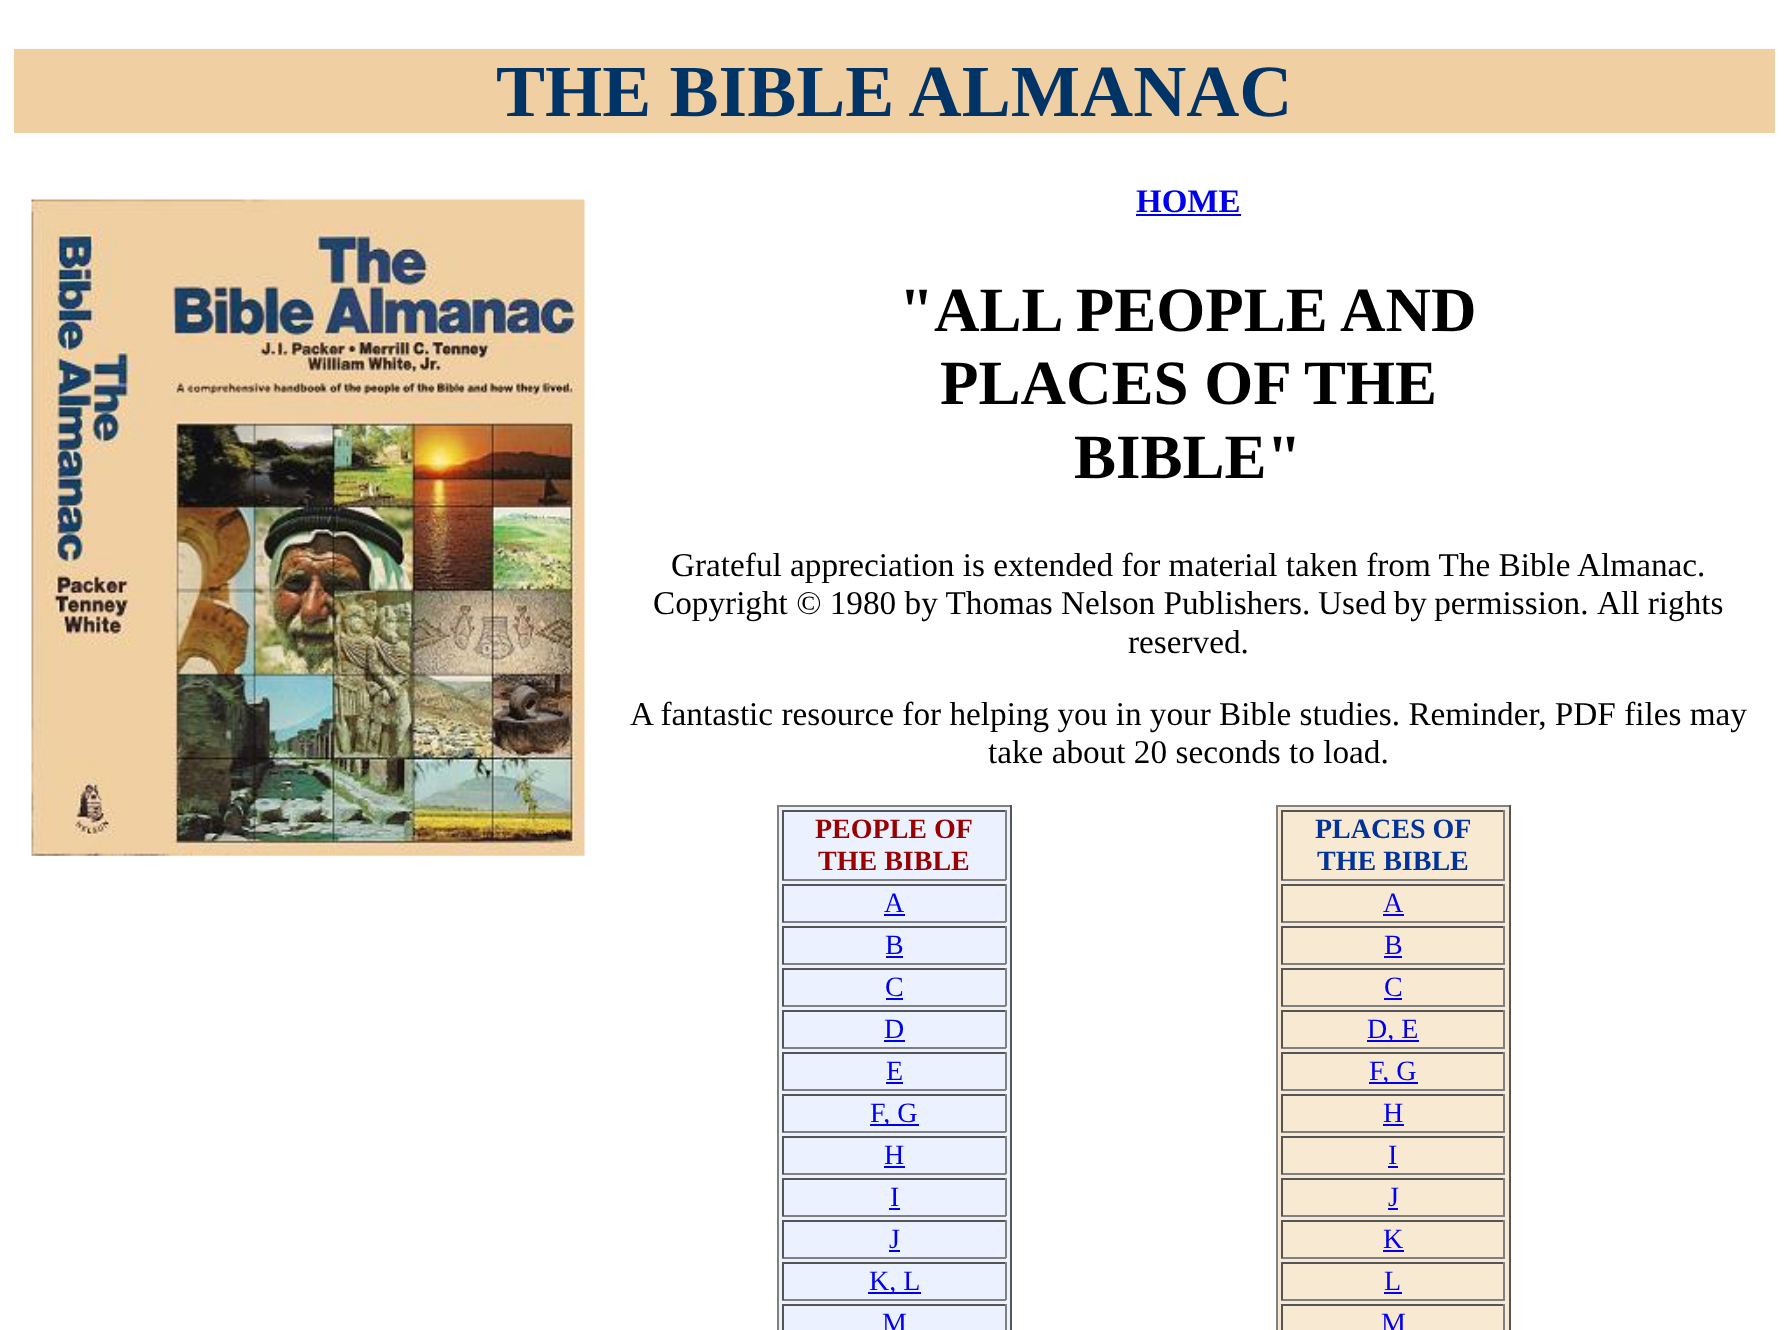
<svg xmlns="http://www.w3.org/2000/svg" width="1788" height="1330">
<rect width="100%" height="100%" fill="#fff"/>
<rect x="14" y="49" width="1761" height="84" fill="#f0cfa2"/>
<text x="496" y="116" style="font-family:Liberation Serif;font-size:73.5px;font-weight:bold;fill:#036">THE BIBLE ALMANAC</text>
<image x="31" y="199" width="554" height="657" href="media/1.png"/>
<text x="1136" y="212" style="font-family:Liberation Serif;font-size:33px;font-weight:bold;fill:#00e">HOME</text>
<rect x="1136" y="214" width="105" height="2" fill="#00e"/>
<text x="899" y="331" style="font-family:Liberation Serif;font-size:63px;font-weight:bold;fill:#000">"ALL PEOPLE AND</text>
<text x="940" y="404" style="font-family:Liberation Serif;font-size:63px;font-weight:bold;fill:#000">PLACES OF THE</text>
<text x="1074" y="478" style="font-family:Liberation Serif;font-size:63px;font-weight:bold;fill:#000">BIBLE"</text>
<text x="671" y="576" style="font-family:Liberation Serif;font-size:33.25px;fill:#000">Grateful appreciation is extended for material taken from The Bible Almanac.</text>
<text x="653" y="614" style="font-family:Liberation Serif;font-size:33.25px;fill:#000">Copyright © 1980 by Thomas Nelson Publishers.</text>
<text x="1318" y="614" word-spacing="-1" style="font-family:Liberation Serif;font-size:33.25px;fill:#000">Used by permission.</text>
<text x="1597" y="614" style="font-family:Liberation Serif;font-size:33.25px;fill:#000">All rights</text>
<text x="1128" y="653" style="font-family:Liberation Serif;font-size:33.25px;fill:#000">reserved.</text>
<text x="630" y="725" style="font-family:Liberation Serif;font-size:33.25px;fill:#000">A fantastic resource for helping you in your Bible studies. Reminder, PDF files may</text>
<text x="988" y="763" style="font-family:Liberation Serif;font-size:33.25px;fill:#000">take about 20 seconds to load.</text>
<rect x="779" y="807" width="231" height="523" fill="#ecf1ff"/>
<rect x="777" y="805" width="235" height="2" fill="#808080"/>
<rect x="1010" y="805" width="2" height="525" fill="#555"/>
<rect x="777" y="805" width="2" height="525" fill="#808080"/>
<rect x="782" y="810" width="224" height="2" fill="#555"/>
<rect x="1005" y="810" width="2" height="70" fill="#808080"/>
<rect x="782" y="879" width="224" height="2" fill="#808080"/>
<rect x="782" y="810" width="2" height="70" fill="#555"/>
<text x="815" y="838" style="font-family:Liberation Serif;font-size:28px;font-weight:bold;fill:#900">PEOPLE OF</text>
<text x="818" y="870" style="font-family:Liberation Serif;font-size:28px;font-weight:bold;fill:#900">THE BIBLE</text>
<rect x="782" y="884" width="224" height="2" fill="#555"/>
<rect x="1005" y="884" width="2" height="38" fill="#808080"/>
<rect x="782" y="921" width="224" height="2" fill="#808080"/>
<rect x="782" y="884" width="2" height="38" fill="#555"/>
<text x="884" y="912" style="font-family:Liberation Serif;font-size:28px;fill:#00e">A</text>
<rect x="884" y="914" width="21" height="2" fill="#00e"/>
<rect x="782" y="926" width="224" height="2" fill="#555"/>
<rect x="1005" y="926" width="2" height="38" fill="#808080"/>
<rect x="782" y="963" width="224" height="2" fill="#808080"/>
<rect x="782" y="926" width="2" height="38" fill="#555"/>
<text x="885" y="954" style="font-family:Liberation Serif;font-size:28px;fill:#00e">B</text>
<rect x="886" y="956" width="17" height="2" fill="#00e"/>
<rect x="782" y="968" width="224" height="2" fill="#555"/>
<rect x="1005" y="968" width="2" height="38" fill="#808080"/>
<rect x="782" y="1005" width="224" height="2" fill="#808080"/>
<rect x="782" y="968" width="2" height="38" fill="#555"/>
<text x="885" y="996" style="font-family:Liberation Serif;font-size:28px;fill:#00e">C</text>
<rect x="886" y="998" width="17" height="2" fill="#00e"/>
<rect x="782" y="1010" width="224" height="2" fill="#555"/>
<rect x="1005" y="1010" width="2" height="38" fill="#808080"/>
<rect x="782" y="1047" width="224" height="2" fill="#808080"/>
<rect x="782" y="1010" width="2" height="38" fill="#555"/>
<text x="884" y="1038" style="font-family:Liberation Serif;font-size:28px;fill:#00e">D</text>
<rect x="884" y="1040" width="21" height="2" fill="#00e"/>
<rect x="782" y="1052" width="224" height="2" fill="#555"/>
<rect x="1005" y="1052" width="2" height="38" fill="#808080"/>
<rect x="782" y="1089" width="224" height="2" fill="#808080"/>
<rect x="782" y="1052" width="2" height="38" fill="#555"/>
<text x="886" y="1080" style="font-family:Liberation Serif;font-size:28px;fill:#00e">E</text>
<rect x="886" y="1082" width="17" height="2" fill="#00e"/>
<rect x="782" y="1094" width="224" height="2" fill="#555"/>
<rect x="1005" y="1094" width="2" height="38" fill="#808080"/>
<rect x="782" y="1131" width="224" height="2" fill="#808080"/>
<rect x="782" y="1094" width="2" height="38" fill="#555"/>
<rect x="870" y="1124" width="49" height="2" fill="#00e"/>
<text x="870" y="1122" style="font-family:Liberation Serif;font-size:28px;fill:#00e">F, G</text>
<rect x="782" y="1136" width="224" height="2" fill="#555"/>
<rect x="1005" y="1136" width="2" height="38" fill="#808080"/>
<rect x="782" y="1173" width="224" height="2" fill="#808080"/>
<rect x="782" y="1136" width="2" height="38" fill="#555"/>
<text x="884" y="1164" style="font-family:Liberation Serif;font-size:28px;fill:#00e">H</text>
<rect x="884" y="1166" width="21" height="2" fill="#00e"/>
<rect x="782" y="1178" width="224" height="2" fill="#555"/>
<rect x="1005" y="1178" width="2" height="38" fill="#808080"/>
<rect x="782" y="1215" width="224" height="2" fill="#808080"/>
<rect x="782" y="1178" width="2" height="38" fill="#555"/>
<text x="890" y="1206" style="font-family:Liberation Serif;font-size:28px;fill:#00e">I</text>
<rect x="889" y="1208" width="11" height="2" fill="#00e"/>
<rect x="782" y="1220" width="224" height="2" fill="#555"/>
<rect x="1005" y="1220" width="2" height="38" fill="#808080"/>
<rect x="782" y="1257" width="224" height="2" fill="#808080"/>
<rect x="782" y="1220" width="2" height="38" fill="#555"/>
<text x="889" y="1248" style="font-family:Liberation Serif;font-size:28px;fill:#00e">J</text>
<rect x="889" y="1250" width="11" height="2" fill="#00e"/>
<rect x="782" y="1262" width="224" height="2" fill="#555"/>
<rect x="1005" y="1262" width="2" height="38" fill="#808080"/>
<rect x="782" y="1299" width="224" height="2" fill="#808080"/>
<rect x="782" y="1262" width="2" height="38" fill="#555"/>
<rect x="868" y="1292" width="53" height="2" fill="#00e"/>
<text x="869" y="1290" style="font-family:Liberation Serif;font-size:28px;fill:#00e">K, L</text>
<rect x="782" y="1304" width="224" height="2" fill="#555"/>
<rect x="1005" y="1304" width="2" height="26" fill="#808080"/>
<rect x="782" y="1304" width="2" height="26" fill="#555"/>
<text x="882" y="1332" style="font-family:Liberation Serif;font-size:28px;fill:#00e">M</text>
<rect x="1278" y="807" width="231" height="523" fill="#f8e9d3"/>
<rect x="1276" y="805" width="234" height="2" fill="#808080"/>
<rect x="1509" y="805" width="2" height="525" fill="#555"/>
<rect x="1276" y="805" width="2" height="525" fill="#808080"/>
<rect x="1281" y="810" width="224" height="2" fill="#555"/>
<rect x="1503" y="810" width="2" height="70" fill="#808080"/>
<rect x="1281" y="879" width="224" height="2" fill="#808080"/>
<rect x="1281" y="810" width="2" height="70" fill="#555"/>
<text x="1315" y="838" style="font-family:Liberation Serif;font-size:28px;font-weight:bold;fill:#039">PLACES OF</text>
<text x="1317" y="870" style="font-family:Liberation Serif;font-size:28px;font-weight:bold;fill:#039">THE BIBLE</text>
<rect x="1281" y="884" width="224" height="2" fill="#555"/>
<rect x="1503" y="884" width="2" height="38" fill="#808080"/>
<rect x="1281" y="921" width="224" height="2" fill="#808080"/>
<rect x="1281" y="884" width="2" height="38" fill="#555"/>
<text x="1383" y="912" style="font-family:Liberation Serif;font-size:28px;fill:#00e">A</text>
<rect x="1383" y="914" width="21" height="2" fill="#00e"/>
<rect x="1281" y="926" width="224" height="2" fill="#555"/>
<rect x="1503" y="926" width="2" height="38" fill="#808080"/>
<rect x="1281" y="963" width="224" height="2" fill="#808080"/>
<rect x="1281" y="926" width="2" height="38" fill="#555"/>
<text x="1384" y="954" style="font-family:Liberation Serif;font-size:28px;fill:#00e">B</text>
<rect x="1384" y="956" width="18" height="2" fill="#00e"/>
<rect x="1281" y="968" width="224" height="2" fill="#555"/>
<rect x="1503" y="968" width="2" height="38" fill="#808080"/>
<rect x="1281" y="1005" width="224" height="2" fill="#808080"/>
<rect x="1281" y="968" width="2" height="38" fill="#555"/>
<text x="1384" y="996" style="font-family:Liberation Serif;font-size:28px;fill:#00e">C</text>
<rect x="1384" y="998" width="18" height="2" fill="#00e"/>
<rect x="1281" y="1010" width="224" height="2" fill="#555"/>
<rect x="1503" y="1010" width="2" height="38" fill="#808080"/>
<rect x="1281" y="1047" width="224" height="2" fill="#808080"/>
<rect x="1281" y="1010" width="2" height="38" fill="#555"/>
<rect x="1367" y="1040" width="52" height="2" fill="#00e"/>
<text x="1367" y="1038" style="font-family:Liberation Serif;font-size:28px;fill:#00e">D, E</text>
<rect x="1281" y="1052" width="224" height="2" fill="#555"/>
<rect x="1503" y="1052" width="2" height="38" fill="#808080"/>
<rect x="1281" y="1089" width="224" height="2" fill="#808080"/>
<rect x="1281" y="1052" width="2" height="38" fill="#555"/>
<rect x="1369" y="1082" width="49" height="2" fill="#00e"/>
<text x="1369" y="1080" style="font-family:Liberation Serif;font-size:28px;fill:#00e">F, G</text>
<rect x="1281" y="1094" width="224" height="2" fill="#555"/>
<rect x="1503" y="1094" width="2" height="38" fill="#808080"/>
<rect x="1281" y="1131" width="224" height="2" fill="#808080"/>
<rect x="1281" y="1094" width="2" height="38" fill="#555"/>
<text x="1383" y="1122" style="font-family:Liberation Serif;font-size:28px;fill:#00e">H</text>
<rect x="1383" y="1124" width="21" height="2" fill="#00e"/>
<rect x="1281" y="1136" width="224" height="2" fill="#555"/>
<rect x="1503" y="1136" width="2" height="38" fill="#808080"/>
<rect x="1281" y="1173" width="224" height="2" fill="#808080"/>
<rect x="1281" y="1136" width="2" height="38" fill="#555"/>
<text x="1388" y="1164" style="font-family:Liberation Serif;font-size:28px;fill:#00e">I</text>
<rect x="1388" y="1166" width="10" height="2" fill="#00e"/>
<rect x="1281" y="1178" width="224" height="2" fill="#555"/>
<rect x="1503" y="1178" width="2" height="38" fill="#808080"/>
<rect x="1281" y="1215" width="224" height="2" fill="#808080"/>
<rect x="1281" y="1178" width="2" height="38" fill="#555"/>
<text x="1388" y="1206" style="font-family:Liberation Serif;font-size:28px;fill:#00e">J</text>
<rect x="1388" y="1208" width="10" height="2" fill="#00e"/>
<rect x="1281" y="1220" width="224" height="2" fill="#555"/>
<rect x="1503" y="1220" width="2" height="38" fill="#808080"/>
<rect x="1281" y="1257" width="224" height="2" fill="#808080"/>
<rect x="1281" y="1220" width="2" height="38" fill="#555"/>
<text x="1383" y="1248" style="font-family:Liberation Serif;font-size:28px;fill:#00e">K</text>
<rect x="1383" y="1250" width="21" height="2" fill="#00e"/>
<rect x="1281" y="1262" width="224" height="2" fill="#555"/>
<rect x="1503" y="1262" width="2" height="38" fill="#808080"/>
<rect x="1281" y="1299" width="224" height="2" fill="#808080"/>
<rect x="1281" y="1262" width="2" height="38" fill="#555"/>
<text x="1384" y="1290" style="font-family:Liberation Serif;font-size:28px;fill:#00e">L</text>
<rect x="1384" y="1292" width="18" height="2" fill="#00e"/>
<rect x="1281" y="1304" width="224" height="2" fill="#555"/>
<rect x="1503" y="1304" width="2" height="26" fill="#808080"/>
<rect x="1281" y="1304" width="2" height="26" fill="#555"/>
<text x="1381" y="1332" style="font-family:Liberation Serif;font-size:28px;fill:#00e">M</text>
</svg>
